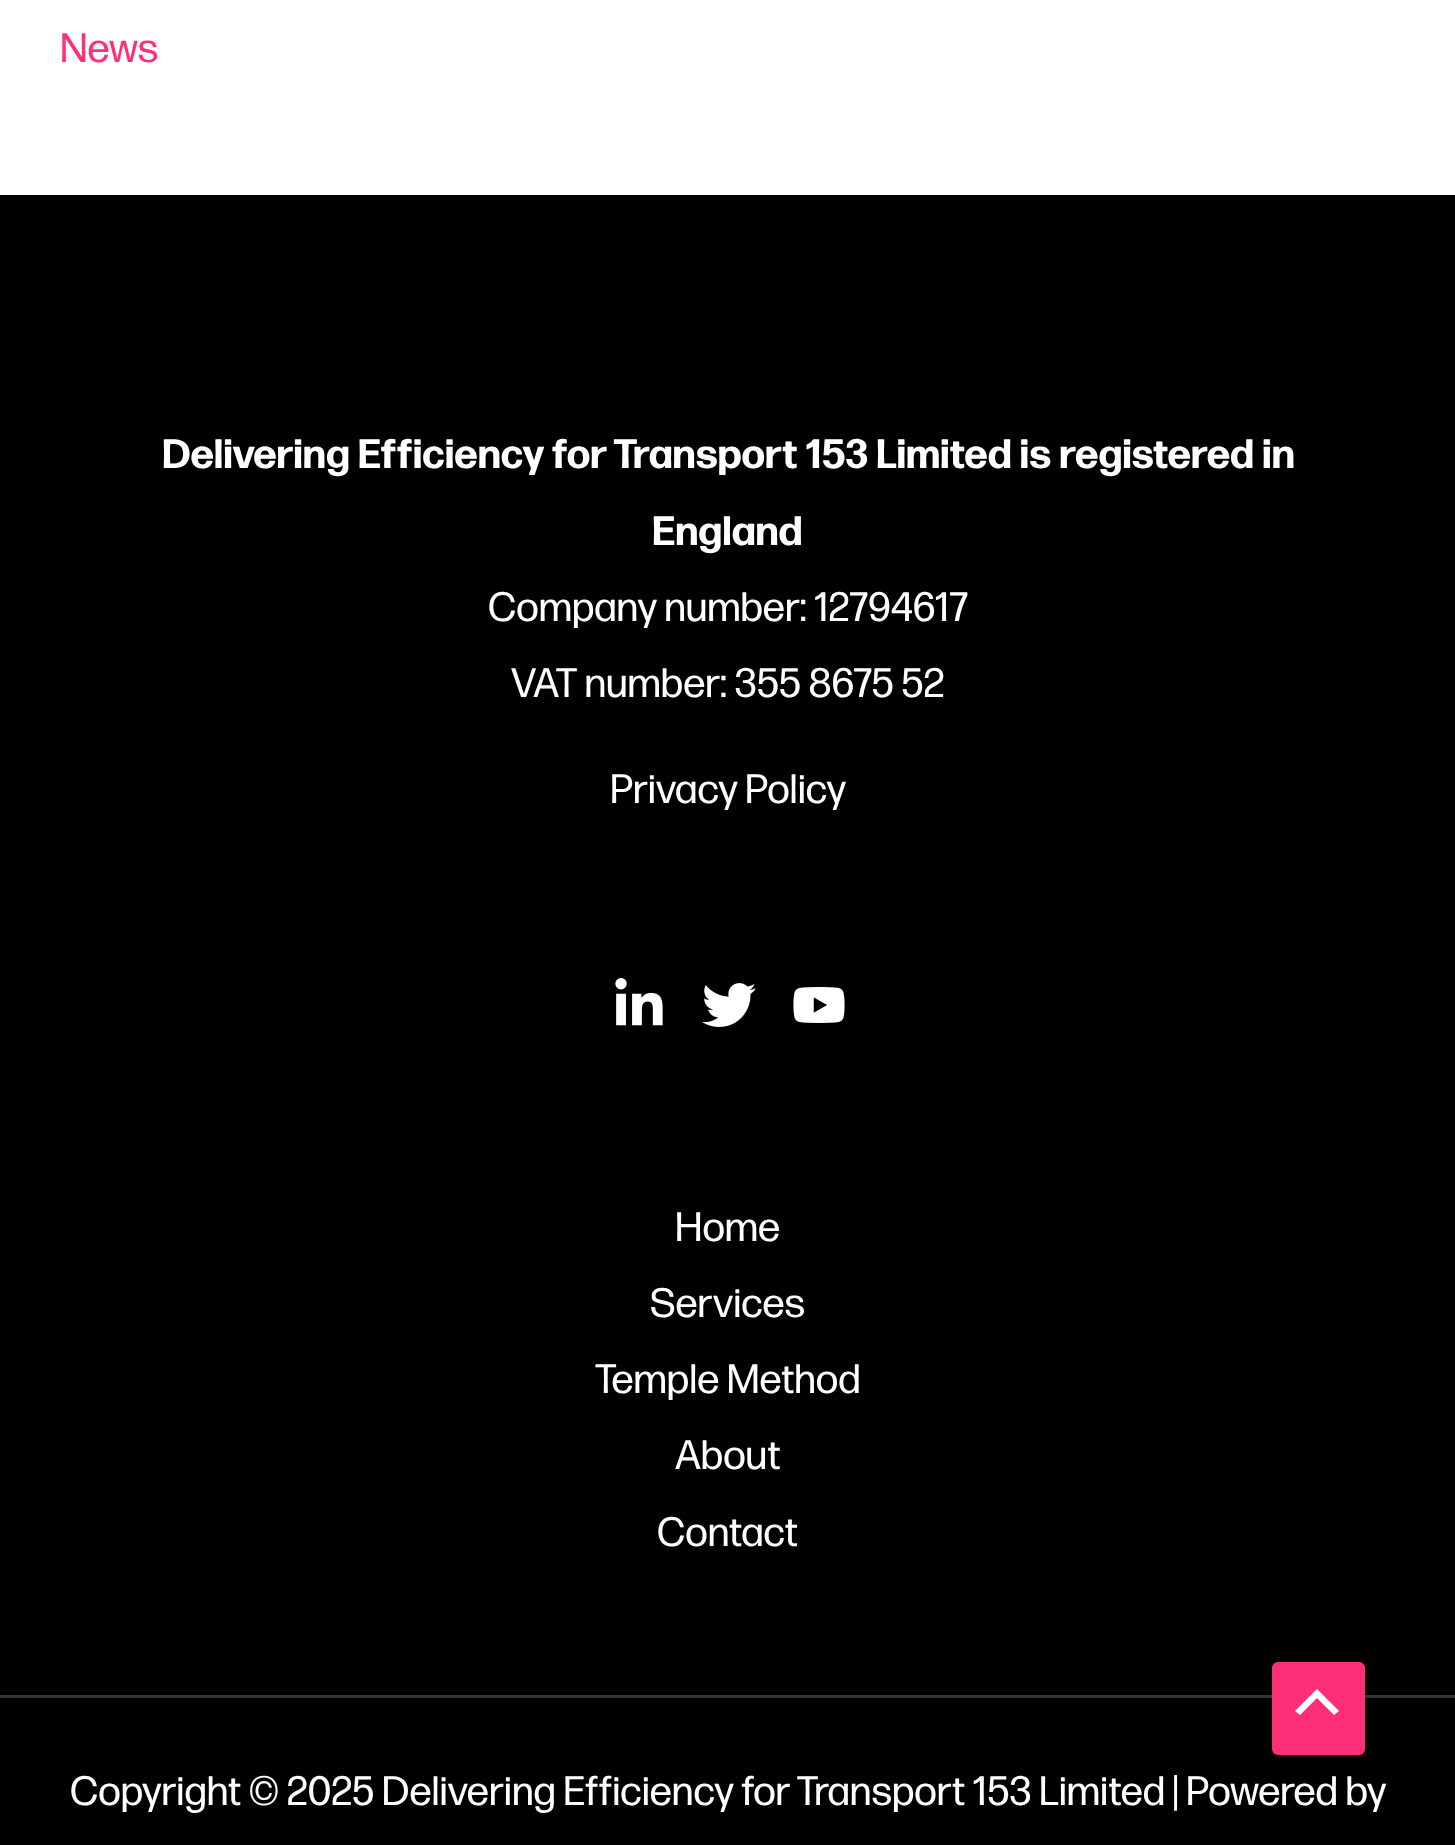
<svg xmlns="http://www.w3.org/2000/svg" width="1455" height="1845">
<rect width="100%" height="100%" fill="#fff"/>
<text x="60" y="62" style="font-family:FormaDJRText;font-size:41.05px;fill:#ff2e78">News</text>
<rect y="195" width="1455" height="1650" fill="#000"/>
<text x="162" y="468" style="font-family:FormaDJRText;font-size:41.05px;font-weight:bold;fill:#fff">Delivering Efficiency for Transport 153 Limited is registered in</text>
<text x="652" y="545" style="font-family:FormaDJRText;font-size:41.05px;font-weight:bold;fill:#fff">England</text>
<text x="488" y="621" style="font-family:FormaDJRText;font-size:41.05px;fill:#fff">Company number: 12794617</text>
<text x="511" y="697" style="font-family:FormaDJRText;font-size:41.05px;fill:#fff">VAT number: 355 8675 52</text>
<text x="610" y="803" style="font-family:FormaDJRText;font-size:41.05px;fill:#fff">Privacy Policy</text>
<image x="615" y="978" width="48" height="48" href="media/1.png"/>
<image x="702" y="983" width="54" height="44" href="media/2.png"/>
<image x="793" y="987" width="52" height="36" href="media/3.png"/>
<text x="675" y="1241" style="font-family:FormaDJRText;font-size:41.05px;fill:#fff">Home</text>
<text x="650" y="1317" style="font-family:FormaDJRText;font-size:41.05px;fill:#fff">Services</text>
<text x="595" y="1393" style="font-family:FormaDJRText;font-size:41.05px;fill:#fff">Temple Method</text>
<text x="675" y="1469" style="font-family:FormaDJRText;font-size:41.05px;fill:#fff">About</text>
<text x="657" y="1546" style="font-family:FormaDJRText;font-size:41.05px;fill:#fff">Contact</text>
<rect y="1695" width="1455" height="3" fill="#333"/>
<text x="70" y="1805" style="font-family:FormaDJRText;font-size:41.05px;fill:#fff">Copyright © 2025 Delivering Efficiency for Transport 153 Limited | Powered by</text>
<rect x="1272" y="1662" width="93" height="93" rx="6" fill="#ff2e78"/>
<path d="M1339 1711l-22-22l-22 22l5 4l17-17l17 17z" fill="#fff"/>
</svg>
